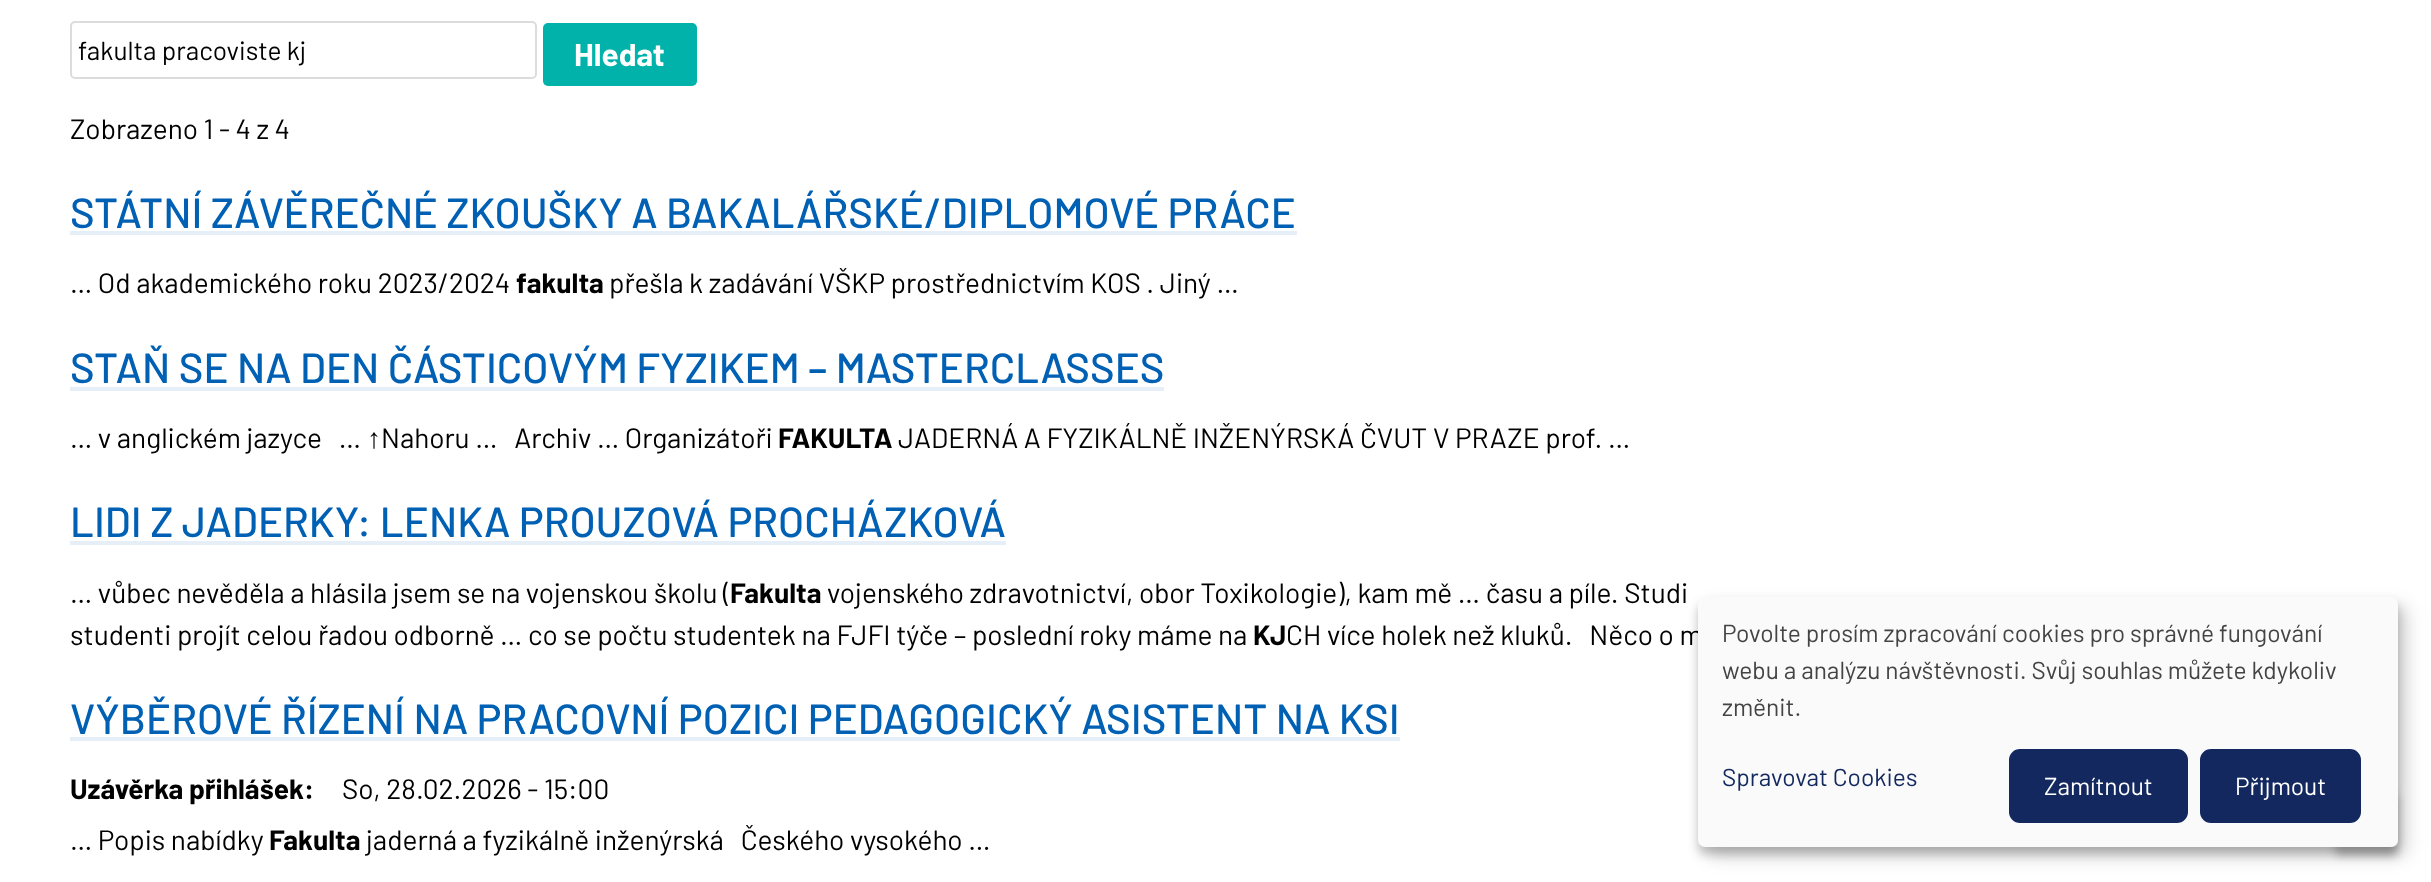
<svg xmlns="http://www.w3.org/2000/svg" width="2431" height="882">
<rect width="100%" height="100%" fill="#fff"/>
<rect x="71" y="22" width="465" height="56" rx="4" fill="none" stroke="#dcdcdc" stroke-width="2"/>
<text x="78" y="60" style="font-family:Barlow;font-size:26.25px;fill:#000">fakulta pracoviste kj</text>
<rect x="543" y="23" width="154" height="63" rx="5" fill="#00b2a9"/>
<text x="574" y="66" style="font-family:Barlow;font-size:31.5px;font-weight:bold;fill:#fff">Hledat</text>
<text x="70" y="139" style="font-family:Barlow;font-size:28px;fill:#000">Zobrazeno 1 - 4 z 4</text>
<text x="70" y="228" style="font-family:Barlow;font-size:42px;font-weight:500;fill:#0060b4">STÁTNÍ ZÁVĚREČNÉ ZKOUŠKY A BAKALÁŘSKÉ/DIPLOMOVÉ PRÁCE</text>
<rect x="70" y="231" width="1227" height="4" fill="#e6eff8"/>
<text x="70" y="293" style="font-family:Barlow;font-size:28px;fill:#000">… Od akademického roku 2023/2024</text>
<text x="516" y="293" style="font-family:Barlow;font-size:28px;font-weight:bold;fill:#000">fakulta</text>
<text x="609" y="293" style="font-family:Barlow;font-size:28px;fill:#000">přešla k zadávání VŠKP prostřednictvím KOS . Jiný …</text>
<text x="70" y="383" style="font-family:Barlow;font-size:42px;font-weight:500;fill:#0060b4">STAŇ SE NA DEN ČÁSTICOVÝM FYZIKEM – MASTERCLASSES</text>
<rect x="70" y="387" width="1094" height="4" fill="#e6eff8"/>
<text x="70" y="448" style="font-family:Barlow;font-size:28px;fill:#000" xml:space="preserve">… v anglickém jazyce   …</text>
<text x="367" y="448" style="font-family:Liberation Sans;font-size:28px;fill:#000">↑</text>
<text x="381" y="448" style="font-family:Barlow;font-size:28px;fill:#000" xml:space="preserve">Nahoru …   Archiv … Organizátoři</text>
<text x="778" y="448" style="font-family:Barlow;font-size:28px;font-weight:bold;fill:#000">FAKULTA</text>
<text x="898" y="448" style="font-family:Barlow;font-size:28px;fill:#000">JADERNÁ A FYZIKÁLNĚ INŽENÝRSKÁ ČVUT V PRAZE prof. …</text>
<text x="70" y="537" style="font-family:Barlow;font-size:42px;font-weight:500;fill:#0060b4">LIDI Z JADERKY: LENKA PROUZOVÁ PROCHÁZKOVÁ</text>
<rect x="70" y="541" width="936" height="4" fill="#e6eff8"/>
<text x="70" y="603" style="font-family:Barlow;font-size:28px;fill:#000">… vůbec nevěděla a hlásila jsem se na vojenskou školu (</text>
<text x="730" y="603" style="font-family:Barlow;font-size:28px;font-weight:bold;fill:#000">Fakulta</text>
<text x="827" y="603" style="font-family:Barlow;font-size:28px;fill:#000">vojenského zdravotnictví, obor Toxikologie), kam mě … času a píle. Studi</text>
<text x="70" y="645" style="font-family:Barlow;font-size:28px;fill:#000">studenti projít celou řadou odborně … co se počtu studentek na FJFI týče – poslední roky máme na</text>
<text x="1253" y="645" style="font-family:Barlow;font-size:28px;font-weight:bold;fill:#000">KJ</text>
<text x="1286" y="645" style="font-family:Barlow;font-size:28px;fill:#000" xml:space="preserve">CH více holek než kluků.   Něco o m</text>
<text x="70" y="734" style="font-family:Barlow;font-size:42px;font-weight:500;fill:#0060b4">VÝBĚROVÉ ŘÍZENÍ NA PRACOVNÍ POZICI PEDAGOGICKÝ ASISTENT NA KSI</text>
<rect x="70" y="737" width="1330" height="4" fill="#e6eff8"/>
<text x="70" y="799" style="font-family:Barlow;font-size:28px;font-weight:bold;fill:#000">Uzávěrka přihlášek:</text>
<text x="342" y="799" style="font-family:Barlow;font-size:28px;fill:#000">So, 28.02.2026 - 15:00</text>
<text x="70" y="850" style="font-family:Barlow;font-size:28px;fill:#000">… Popis nabídky</text>
<text x="269" y="850" style="font-family:Barlow;font-size:28px;font-weight:bold;fill:#000">Fakulta</text>
<text x="366" y="850" style="font-family:Barlow;font-size:28px;fill:#000" xml:space="preserve">jaderná a fyzikálně inženýrská   Českého vysokého …</text>
<rect x="2335" y="795" width="63" height="61" rx="5" fill="#00000033" filter="blur(4.5px)"/>
<rect x="2335" y="786" width="63" height="61" rx="5" fill="#ffffffbf"/>
<rect x="1706" y="606" width="700" height="250" rx="7" fill="#00000030" filter="blur(9px)"/>
<rect x="1698" y="604" width="700" height="250" rx="7" fill="#00000033" filter="blur(5px)"/>
<rect x="1698" y="597" width="700" height="250" rx="7" fill="#fafafa"/>
<text x="1722" y="642" style="font-family:Barlow;font-size:24.5px;fill:#444">Povolte prosím zpracování cookies pro správné fungování</text>
<text x="1722" y="679" style="font-family:Barlow;font-size:24.5px;fill:#444">webu a analýzu návštěvnosti. Svůj souhlas můžete kdykoliv</text>
<text x="1722" y="716" style="font-family:Barlow;font-size:24.5px;fill:#444">změnit.</text>
<text x="1722" y="786" style="font-family:Barlow;font-size:24.5px;fill:#12285f">Spravovat Cookies</text>
<rect x="2011.5" y="751.5" width="174" height="69" rx="8.5" fill="#12285f" stroke="#12285f" stroke-width="5"/>
<text x="2044" y="795" style="font-family:Barlow;font-size:24.5px;fill:#fff">Zamítnout</text>
<rect x="2202.5" y="751.5" width="156" height="69" rx="8.5" fill="#12285f" stroke="#12285f" stroke-width="5"/>
<text x="2235" y="795" style="font-family:Barlow;font-size:24.5px;fill:#fff">Přijmout</text>
</svg>
